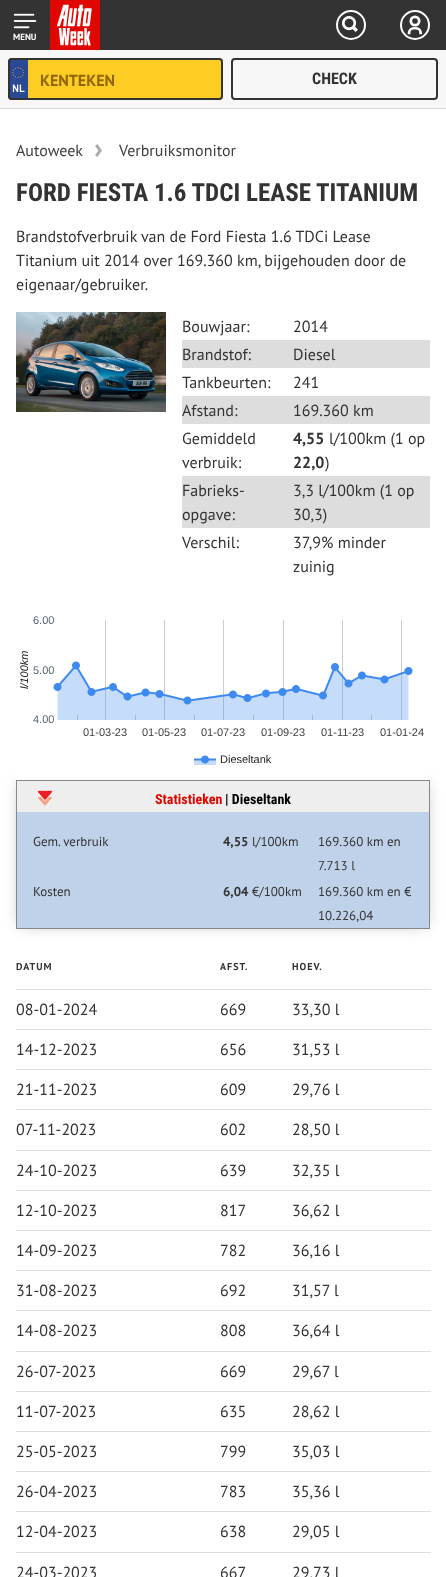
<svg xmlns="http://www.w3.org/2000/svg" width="446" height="1577">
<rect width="100%" height="100%" fill="#fff"/>
<rect width="446" height="50" fill="#333"/>
<image x="13" y="13" width="24" height="16" href="media/1.png"/>
<text x="13" y="40" style="font-family:PT Sans;font-size:9px;font-weight:bold;fill:#fff">MENU</text>
<image x="50" y="0" width="50" height="50" href="media/2.png"/>
<image x="342" y="16" width="16" height="16" href="media/3.png"/>
<circle cx="351" cy="25" r="14" fill="none" stroke="#fff" stroke-width="2"/>
<image x="407" y="15" width="15" height="20" href="media/4.png"/>
<circle cx="415" cy="25" r="14" fill="none" stroke="#fff" stroke-width="2"/>
<rect y="50" width="446" height="58" fill="#f7f7f7"/>
<rect y="108" width="446" height="1" fill="#ddd"/>
<rect x="8" y="58" width="215" height="42" rx="4" fill="#fecd24"/>
<image x="8" y="58" width="20" height="42" href="media/5.png"/>
<rect x="9" y="59" width="213" height="40" rx="3" fill="none" stroke="#333" stroke-width="2"/>
<text x="40" y="86" style="font-family:PT Sans;font-size:16px;font-weight:bold;fill:#906606">KENTEKEN</text>
<rect x="232" y="59" width="205" height="40" rx="3" fill="none" stroke="#333" stroke-width="2"/>
<text x="312" y="84" style="font-family:Roboto Condensed;font-size:16px;font-weight:bold;fill:#333">CHECK</text>
<text x="16" y="156" style="font-family:PT Sans;font-size:16px;fill:#404040">Autoweek</text>
<image x="95" y="144" width="7" height="13" href="media/6.png"/>
<text x="119" y="156" style="font-family:PT Sans;font-size:16px;fill:#404040">Verbruiksmonitor</text>
<text x="16" y="201" style="font-family:Roboto Condensed;font-size:25px;font-weight:bold;fill:#333">FORD FIESTA 1.6 TDCI LEASE TITANIUM</text>
<text x="16" y="242" style="font-family:PT Sans;font-size:16px;fill:#333">Brandstofverbruik van de Ford Fiesta 1.6 TDCi Lease</text>
<text x="16" y="266" style="font-family:PT Sans;font-size:16px;fill:#333">Titanium uit 2014 over 169.360 km, bijgehouden door de</text>
<text x="16" y="290" style="font-family:PT Sans;font-size:16px;fill:#333">eigenaar/gebruiker.</text>
<image x="16" y="312" width="150" height="100" href="media/7.png"/>
<text x="182" y="332" style="font-family:PT Sans;font-size:16px;fill:#333">Bouwjaar:</text>
<text x="293" y="332" style="font-family:PT Sans;font-size:16px;fill:#333">2014</text>
<rect x="182" y="340" width="248" height="28" fill="#ddd"/>
<text x="182" y="360" style="font-family:PT Sans;font-size:16px;fill:#333">Brandstof:</text>
<text x="293" y="360" style="font-family:PT Sans;font-size:16px;fill:#333">Diesel</text>
<text x="182" y="388" style="font-family:PT Sans;font-size:16px;fill:#333">Tankbeurten:</text>
<text x="293" y="388" style="font-family:PT Sans;font-size:16px;fill:#333">241</text>
<rect x="182" y="396" width="248" height="28" fill="#ddd"/>
<text x="182" y="416" style="font-family:PT Sans;font-size:16px;fill:#333">Afstand:</text>
<text x="293" y="416" style="font-family:PT Sans;font-size:16px;fill:#333">169.360 km</text>
<text x="182" y="444" style="font-family:PT Sans;font-size:16px;fill:#333">Gemiddeld</text>
<text x="182" y="468" style="font-family:PT Sans;font-size:16px;fill:#333">verbruik:</text>
<text x="293" y="444" style="font-family:PT Sans;font-size:16px;font-weight:bold;fill:#333">4,55</text>
<text x="329" y="444" style="font-family:PT Sans;font-size:16px;fill:#333">l/100km (1 op</text>
<text x="293" y="468" style="font-family:PT Sans;font-size:16px;font-weight:bold;fill:#333">22,0</text>
<text x="325" y="468" style="font-family:PT Sans;font-size:16px;fill:#333">)</text>
<rect x="182" y="476" width="248" height="52" fill="#ddd"/>
<text x="182" y="496" style="font-family:PT Sans;font-size:16px;fill:#333">Fabrieks-</text>
<text x="182" y="520" style="font-family:PT Sans;font-size:16px;fill:#333">opgave:</text>
<text x="293" y="496" style="font-family:PT Sans;font-size:16px;fill:#333">3,3 l/100km (1 op</text>
<text x="293" y="520" style="font-family:PT Sans;font-size:16px;fill:#333">30,3)</text>
<text x="182" y="548" style="font-family:PT Sans;font-size:16px;fill:#333">Verschil:</text>
<text x="293" y="548" style="font-family:PT Sans;font-size:16px;fill:#333">37,9% minder</text>
<text x="293" y="572" style="font-family:PT Sans;font-size:16px;fill:#333">zuinig</text>
<rect x="20" y="784" width="406" height="141" fill="#bbb" filter="blur(7.5px)"/>
<image x="16" y="620" width="414" height="160" href="media/8.png"/>
<text x="33" y="624" style="font-family:Liberation Sans;font-size:11px;fill:#596770">6.00</text>
<text x="28" y="689" transform="rotate(-90 28 689)" style="font-family:Liberation Sans;font-size:11px;font-style:italic;fill:#222">l/100km</text>
<text x="33" y="674" style="font-family:Liberation Sans;font-size:11px;fill:#596770">5.00</text>
<text x="33" y="723" style="font-family:Liberation Sans;font-size:11px;fill:#596770">4.00</text>
<text x="83" y="736" style="font-family:Liberation Sans;font-size:11px;fill:#404040">01-03-23</text>
<text x="142" y="736" style="font-family:Liberation Sans;font-size:11px;fill:#404040">01-05-23</text>
<text x="201" y="736" style="font-family:Liberation Sans;font-size:11px;fill:#404040">01-07-23</text>
<text x="261" y="736" style="font-family:Liberation Sans;font-size:11px;fill:#404040">01-09-23</text>
<text x="321" y="736" style="font-family:Liberation Sans;font-size:11px;fill:#404040">01-11-23</text>
<text x="380" y="736" style="font-family:Liberation Sans;font-size:11px;fill:#404040">01-01-24</text>
<text x="220" y="763" style="font-family:Liberation Sans;font-size:11px;fill:#222">Dieseltank</text>
<rect x="16.5" y="780.5" width="413" height="148" fill="none" stroke="#878787"/>
<rect x="17" y="781" width="412" height="31" fill="#eee"/>
<image x="37" y="790" width="16" height="16" href="media/9.png"/>
<text x="155" y="804" style="font-family:Roboto Condensed;font-size:14px;font-weight:bold;fill:#df0700">Statistieken</text>
<text x="225" y="804" style="font-family:Roboto Condensed;font-size:14px;font-weight:bold;fill:#000">| Dieseltank</text>
<rect x="17" y="812" width="412" height="116" fill="#bfd2ea"/>
<text x="33" y="846" style="font-family:PT Sans;font-size:13px;fill:#333">Gem. verbruik</text>
<text x="223" y="846" style="font-family:PT Sans;font-size:13px;font-weight:bold;fill:#333">4,55</text>
<text x="252" y="846" style="font-family:PT Sans;font-size:13px;fill:#333">l/100km</text>
<text x="318" y="846" style="font-family:PT Sans;font-size:13px;fill:#333">169.360 km en</text>
<text x="318" y="870" style="font-family:PT Sans;font-size:13px;fill:#333">7.713 l</text>
<text x="33" y="896" style="font-family:PT Sans;font-size:13px;fill:#333">Kosten</text>
<text x="223" y="896" style="font-family:PT Sans;font-size:13px;font-weight:bold;fill:#333">6,04</text>
<text x="252" y="896" style="font-family:PT Sans;font-size:13px;fill:#333">€/100km</text>
<text x="318" y="896" style="font-family:PT Sans;font-size:13px;fill:#333">169.360 km en €</text>
<text x="318" y="920" style="font-family:PT Sans;font-size:13px;fill:#333">10.226,04</text>
<rect x="16" y="989" width="415" height="1" fill="#ddd"/>
<text x="16" y="970" style="font-family:PT Sans;font-size:10px;font-weight:bold;letter-spacing:1px;fill:#333">DATUM</text>
<text x="220" y="970" style="font-family:PT Sans;font-size:10px;font-weight:bold;letter-spacing:1px;fill:#333">AFST.</text>
<text x="292" y="970" style="font-family:PT Sans;font-size:10px;font-weight:bold;letter-spacing:1px;fill:#333">HOEV.</text>
<rect x="16" y="1029" width="415" height="1" fill="#ddd"/>
<text x="16" y="1015" style="font-family:PT Sans;font-size:16px;fill:#333">08-01-2024</text>
<text x="220" y="1015" style="font-family:PT Sans;font-size:16px;fill:#333">669</text>
<text x="292" y="1015" style="font-family:PT Sans;font-size:16px;fill:#333">33,30 l</text>
<rect x="16" y="1069" width="415" height="1" fill="#ddd"/>
<text x="16" y="1055" style="font-family:PT Sans;font-size:16px;fill:#333">14-12-2023</text>
<text x="220" y="1055" style="font-family:PT Sans;font-size:16px;fill:#333">656</text>
<text x="292" y="1055" style="font-family:PT Sans;font-size:16px;fill:#333">31,53 l</text>
<rect x="16" y="1109" width="415" height="1" fill="#ddd"/>
<text x="16" y="1095" style="font-family:PT Sans;font-size:16px;fill:#333">21-11-2023</text>
<text x="220" y="1095" style="font-family:PT Sans;font-size:16px;fill:#333">609</text>
<text x="292" y="1095" style="font-family:PT Sans;font-size:16px;fill:#333">29,76 l</text>
<rect x="16" y="1150" width="415" height="1" fill="#ddd"/>
<text x="16" y="1135" style="font-family:PT Sans;font-size:16px;fill:#333">07-11-2023</text>
<text x="220" y="1135" style="font-family:PT Sans;font-size:16px;fill:#333">602</text>
<text x="292" y="1135" style="font-family:PT Sans;font-size:16px;fill:#333">28,50 l</text>
<rect x="16" y="1190" width="415" height="1" fill="#ddd"/>
<text x="16" y="1176" style="font-family:PT Sans;font-size:16px;fill:#333">24-10-2023</text>
<text x="220" y="1176" style="font-family:PT Sans;font-size:16px;fill:#333">639</text>
<text x="292" y="1176" style="font-family:PT Sans;font-size:16px;fill:#333">32,35 l</text>
<rect x="16" y="1230" width="415" height="1" fill="#ddd"/>
<text x="16" y="1216" style="font-family:PT Sans;font-size:16px;fill:#333">12-10-2023</text>
<text x="220" y="1216" style="font-family:PT Sans;font-size:16px;fill:#333">817</text>
<text x="292" y="1216" style="font-family:PT Sans;font-size:16px;fill:#333">36,62 l</text>
<rect x="16" y="1270" width="415" height="1" fill="#ddd"/>
<text x="16" y="1256" style="font-family:PT Sans;font-size:16px;fill:#333">14-09-2023</text>
<text x="220" y="1256" style="font-family:PT Sans;font-size:16px;fill:#333">782</text>
<text x="292" y="1256" style="font-family:PT Sans;font-size:16px;fill:#333">36,16 l</text>
<rect x="16" y="1310" width="415" height="1" fill="#ddd"/>
<text x="16" y="1296" style="font-family:PT Sans;font-size:16px;fill:#333">31-08-2023</text>
<text x="220" y="1296" style="font-family:PT Sans;font-size:16px;fill:#333">692</text>
<text x="292" y="1296" style="font-family:PT Sans;font-size:16px;fill:#333">31,57 l</text>
<rect x="16" y="1351" width="415" height="1" fill="#ddd"/>
<text x="16" y="1336" style="font-family:PT Sans;font-size:16px;fill:#333">14-08-2023</text>
<text x="220" y="1336" style="font-family:PT Sans;font-size:16px;fill:#333">808</text>
<text x="292" y="1336" style="font-family:PT Sans;font-size:16px;fill:#333">36,64 l</text>
<rect x="16" y="1391" width="415" height="1" fill="#ddd"/>
<text x="16" y="1377" style="font-family:PT Sans;font-size:16px;fill:#333">26-07-2023</text>
<text x="220" y="1377" style="font-family:PT Sans;font-size:16px;fill:#333">669</text>
<text x="292" y="1377" style="font-family:PT Sans;font-size:16px;fill:#333">29,67 l</text>
<rect x="16" y="1431" width="415" height="1" fill="#ddd"/>
<text x="16" y="1417" style="font-family:PT Sans;font-size:16px;fill:#333">11-07-2023</text>
<text x="220" y="1417" style="font-family:PT Sans;font-size:16px;fill:#333">635</text>
<text x="292" y="1417" style="font-family:PT Sans;font-size:16px;fill:#333">28,62 l</text>
<rect x="16" y="1471" width="415" height="1" fill="#ddd"/>
<text x="16" y="1457" style="font-family:PT Sans;font-size:16px;fill:#333">25-05-2023</text>
<text x="220" y="1457" style="font-family:PT Sans;font-size:16px;fill:#333">799</text>
<text x="292" y="1457" style="font-family:PT Sans;font-size:16px;fill:#333">35,03 l</text>
<rect x="16" y="1511" width="415" height="1" fill="#ddd"/>
<text x="16" y="1497" style="font-family:PT Sans;font-size:16px;fill:#333">26-04-2023</text>
<text x="220" y="1497" style="font-family:PT Sans;font-size:16px;fill:#333">783</text>
<text x="292" y="1497" style="font-family:PT Sans;font-size:16px;fill:#333">35,36 l</text>
<rect x="16" y="1552" width="415" height="1" fill="#ddd"/>
<text x="16" y="1537" style="font-family:PT Sans;font-size:16px;fill:#333">12-04-2023</text>
<text x="220" y="1537" style="font-family:PT Sans;font-size:16px;fill:#333">638</text>
<text x="292" y="1537" style="font-family:PT Sans;font-size:16px;fill:#333">29,05 l</text>
<text x="16" y="1578" style="font-family:PT Sans;font-size:16px;fill:#333">24-03-2023</text>
<text x="220" y="1578" style="font-family:PT Sans;font-size:16px;fill:#333">667</text>
<text x="292" y="1578" style="font-family:PT Sans;font-size:16px;fill:#333">29,73 l</text>
</svg>
